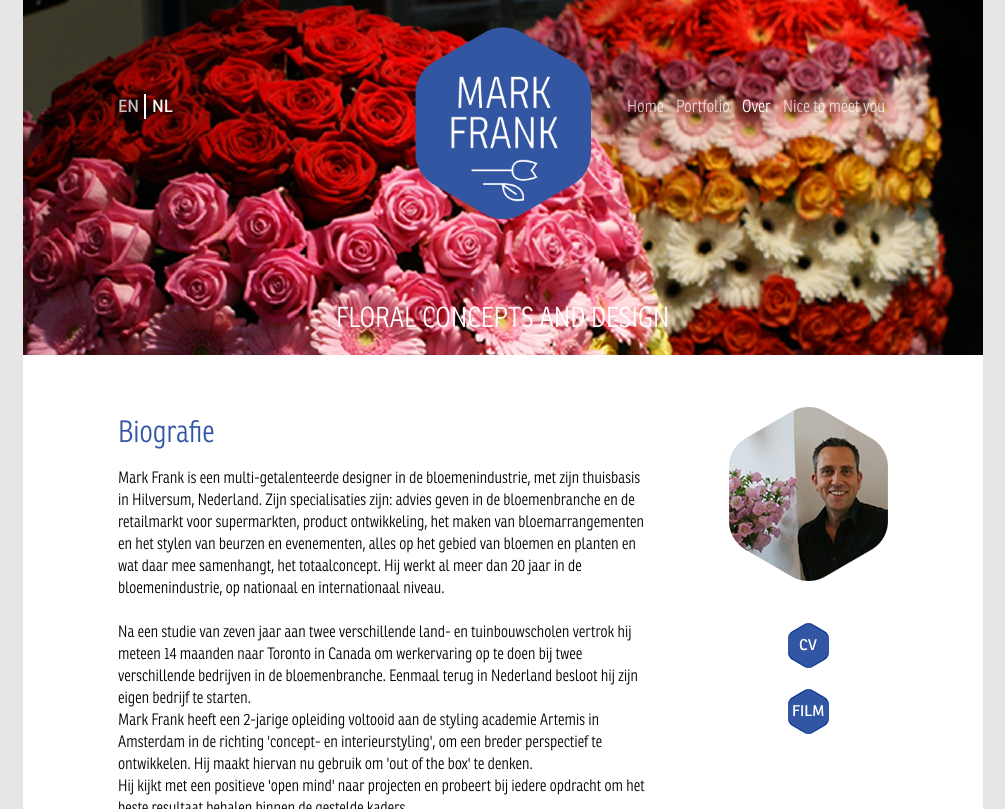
<svg xmlns="http://www.w3.org/2000/svg" width="1005" height="809">
<rect width="100%" height="100%" fill="#e6e6e6"/>
<rect x="23" y="355" width="960" height="454" fill="#fff"/>
<image x="23" y="0" width="960" height="355" href="media/1.png"/>
<text x="118" y="112" style="font-family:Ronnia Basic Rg;font-size:17px;fill:#c9c0c0">EN</text>
<rect x="144" y="94" width="2" height="25" fill="#fff"/>
<text x="152" y="112" style="font-family:Ronnia Basic Rg;font-size:17px;fill:#fff">NL</text>
<image x="415" y="27" width="176" height="192" href="media/2.png"/>
<image x="628" y="99" width="35" height="14" href="media/3.png"/>
<image x="677" y="99" width="52" height="14" href="media/4.png"/>
<image x="742" y="99" width="29" height="14" href="media/5.png"/>
<image x="784" y="99" width="100" height="17" href="media/6.png"/>
<image x="338" y="306" width="330" height="22" href="media/7.png"/>
<image x="120" y="420" width="94" height="29" href="media/8.png"/>
<image x="119" y="471" width="521" height="16" href="media/9.png"/>
<image x="119" y="493" width="516" height="16" href="media/10.png"/>
<image x="119" y="515" width="524" height="16" href="media/11.png"/>
<image x="118" y="537" width="517" height="16" href="media/12.png"/>
<image x="118" y="559" width="464" height="16" href="media/13.png"/>
<image x="119" y="581" width="325" height="16" href="media/14.png"/>
<image x="119" y="625" width="512" height="16" href="media/15.png"/>
<image x="119" y="647" width="463" height="16" href="media/16.png"/>
<image x="118" y="669" width="519" height="16" href="media/17.png"/>
<image x="118" y="691" width="133" height="16" href="media/18.png"/>
<image x="119" y="713" width="479" height="16" href="media/19.png"/>
<image x="118" y="735" width="484" height="16" href="media/20.png"/>
<image x="118" y="757" width="414" height="16" href="media/21.png"/>
<image x="119" y="779" width="526" height="16" href="media/22.png"/>
<image x="119" y="801" width="286" height="8" href="media/23.png"/>
<image x="729" y="407" width="159" height="174" href="media/24.png"/>
<image x="788" y="623" width="41" height="45" href="media/25.png"/>
<text x="799" y="650" style="font-family:Ronnia Basic Rg;font-size:15px;fill:#fff">CV</text>
<image x="788" y="689" width="41" height="45" href="media/25.png"/>
<text x="792" y="716" style="font-family:Ronnia Basic Rg;font-size:15px;fill:#fff">FILM</text>
</svg>
